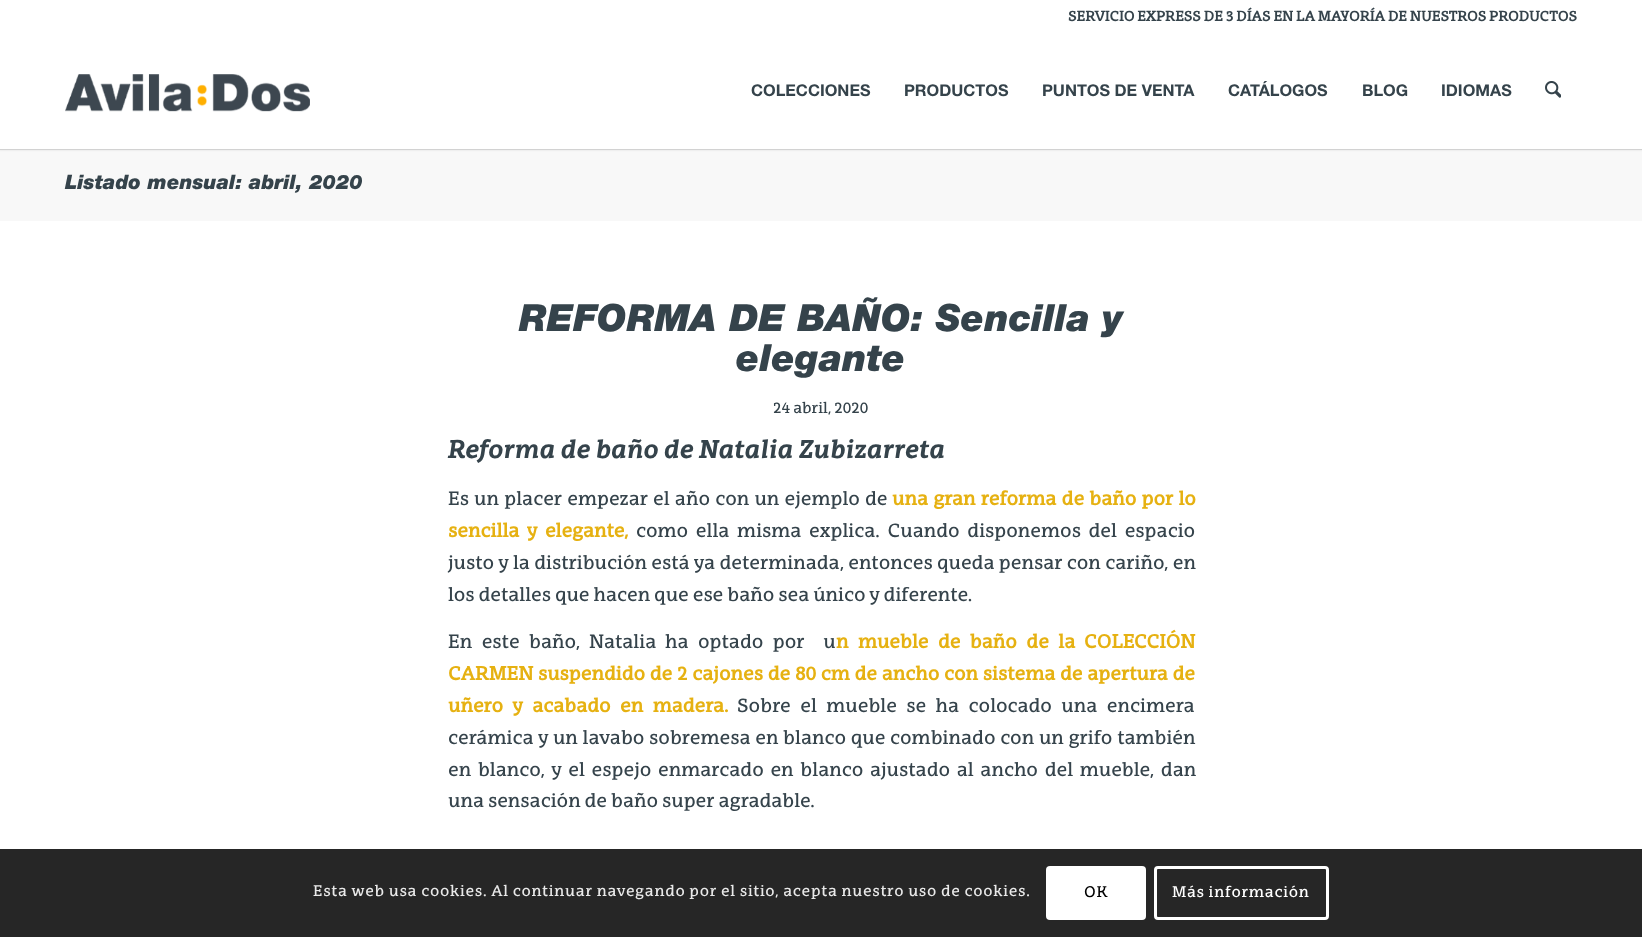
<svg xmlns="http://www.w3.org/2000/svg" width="1642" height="937">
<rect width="100%" height="100%" fill="#fff"/>
<rect y="150" width="1642" height="71" fill="#f8f8f8"/>
<rect y="149" width="1642" height="1" fill="#e1e1e1"/>
<rect x="-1" y="-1" width="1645" height="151" fill="#0000001a" filter="blur(1px)"/>
<rect width="1642" height="149" fill="#fff"/>
<text x="1068" y="21" style="font-family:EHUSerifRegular;font-size:13.75px;font-weight:bold;fill:#35434b">SERVICIO EXPRESS DE 3 DÍAS EN LA MAYORÍA DE NUESTROS PRODUCTOS</text>
<image x="65" y="74" width="245" height="38" href="media/1.png"/>
<text x="751" y="96" style="font-family:Helvetica Neue;font-size:16.25px;font-weight:bold;fill:#35434b">COLECCIONES</text>
<text x="904" y="96" style="font-family:Helvetica Neue;font-size:16.25px;font-weight:bold;fill:#35434b">PRODUCTOS</text>
<text x="1042" y="96" style="font-family:Helvetica Neue;font-size:16.25px;font-weight:bold;fill:#35434b">PUNTOS DE VENTA</text>
<text x="1228" y="96" style="font-family:Helvetica Neue;font-size:16.25px;font-weight:bold;fill:#35434b">CATÁLOGOS</text>
<text x="1362" y="96" style="font-family:Helvetica Neue;font-size:16.25px;font-weight:bold;fill:#35434b">BLOG</text>
<text x="1441" y="96" style="font-family:Helvetica Neue;font-size:16.25px;font-weight:bold;fill:#35434b">IDIOMAS</text>
<image x="1545" y="81" width="16" height="17" href="media/2.png"/>
<text x="65" y="189" style="font-family:Helvetica Neue;font-size:20px;font-weight:900;font-style:italic;fill:#35434b">Listado mensual: abril, 2020</text>
<text x="519" y="331" style="font-family:Helvetica Neue;font-size:37.5px;font-weight:900;font-style:italic;fill:#35434b">REFORMA DE BAÑO: Sencilla y</text>
<text x="736" y="371" style="font-family:Helvetica Neue;font-size:37.5px;font-weight:900;font-style:italic;fill:#35434b">elegante</text>
<text x="773" y="413" style="font-family:EHUSerifRegular;font-size:15px;fill:#35434b">24 abril, 2020</text>
<text x="448" y="458" style="font-family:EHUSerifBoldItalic;font-size:25px;font-weight:bold;font-style:italic;fill:#35434b">Reforma de baño de Natalia Zubizarreta</text>
<text x="448" y="505" word-spacing="1.25" style="font-family:EHUSerifRegular;font-size:18.7px;fill:#35434b">Es un placer empezar el año con un ejemplo de</text>
<text x="892" y="505" word-spacing="1.25" style="font-family:EHUSerifRegular;font-size:18.7px;font-weight:bold;fill:#e6b111">una gran reforma de baño por lo</text>
<text x="448" y="537" word-spacing="3.75" style="font-family:EHUSerifRegular;font-size:18.7px;font-weight:bold;fill:#e6b111">sencilla y elegante,</text>
<text x="636" y="537" word-spacing="3.75" style="font-family:EHUSerifRegular;font-size:18.7px;fill:#35434b">como ella misma explica. Cuando disponemos del espacio</text>
<text x="448" y="569" word-spacing="0.4" style="font-family:EHUSerifRegular;font-size:18.7px;fill:#35434b">justo y la distribución está ya determinada, entonces queda pensar con cariño, en</text>
<text x="448" y="601" style="font-family:EHUSerifRegular;font-size:18.7px;fill:#35434b">los detalles que hacen que ese baño sea único y diferente.</text>
<text x="448" y="648" word-spacing="5.5" style="font-family:EHUSerifRegular;font-size:18.7px;fill:#35434b">En este baño,</text>
<text x="589" y="648" style="font-family:EHUSerifRegular;font-size:18.7px;fill:#35434b">Natalia</text>
<text x="665" y="648" word-spacing="5.5" style="font-family:EHUSerifRegular;font-size:18.7px;fill:#35434b" xml:space="preserve">ha optado por  u</text>
<text x="836" y="648" word-spacing="5.5" style="font-family:EHUSerifRegular;font-size:18.7px;font-weight:bold;fill:#e6b111">n mueble de baño de la</text>
<text x="1084" y="648" style="font-family:EHUSerifRegular;font-size:18.7px;font-weight:bold;fill:#e6b111">COLECCIÓN</text>
<text x="448" y="680" style="font-family:EHUSerifRegular;font-size:18.7px;font-weight:bold;fill:#e6b111">CARMEN</text>
<text x="538" y="680" word-spacing="0.8" style="font-family:EHUSerifRegular;font-size:18.7px;font-weight:bold;fill:#e6b111">suspendido de 2 cajones de 80 cm de ancho con sistema de apertura de</text>
<text x="448" y="712" word-spacing="5.5" style="font-family:EHUSerifRegular;font-size:18.7px;font-weight:bold;fill:#e6b111">uñero y acabado en madera.</text>
<text x="737" y="712" word-spacing="5.5" style="font-family:EHUSerifRegular;font-size:18.7px;fill:#35434b">Sobre el mueble se ha colocado una encimera</text>
<text x="448" y="744" word-spacing="0.75" style="font-family:EHUSerifRegular;font-size:18.7px;fill:#35434b">cerámica y un lavabo sobremesa en blanco que combinado con un grifo también</text>
<text x="448" y="776" word-spacing="2.75" style="font-family:EHUSerifRegular;font-size:18.7px;fill:#35434b">en blanco, y el espejo enmarcado en blanco ajustado al ancho del mueble, dan</text>
<text x="448" y="807" style="font-family:EHUSerifRegular;font-size:18.7px;fill:#35434b">una sensación de baño super agradable.</text>
<rect y="849" width="1642" height="88" fill="#000000d9"/>
<text x="313" y="896" style="font-family:EHUSerifRegular;font-size:15px;letter-spacing:0.75px;fill:#e9e9e9">Esta web usa cookies. Al continuar navegando por el sitio, acepta nuestro uso de cookies.</text>
<rect x="1046" y="866" width="100" height="54" rx="4" fill="#fff"/>
<text x="1084" y="897" style="font-family:EHUSerifRegular;font-size:15px;letter-spacing:0.75px;fill:#000">OK</text>
<rect x="1155.5" y="867.5" width="172" height="51" rx="2.5" fill="none" stroke="#fff" stroke-width="3"/>
<text x="1172" y="897" style="font-family:EHUSerifRegular;font-size:15px;letter-spacing:0.75px;fill:#fff">Más información</text>
</svg>
